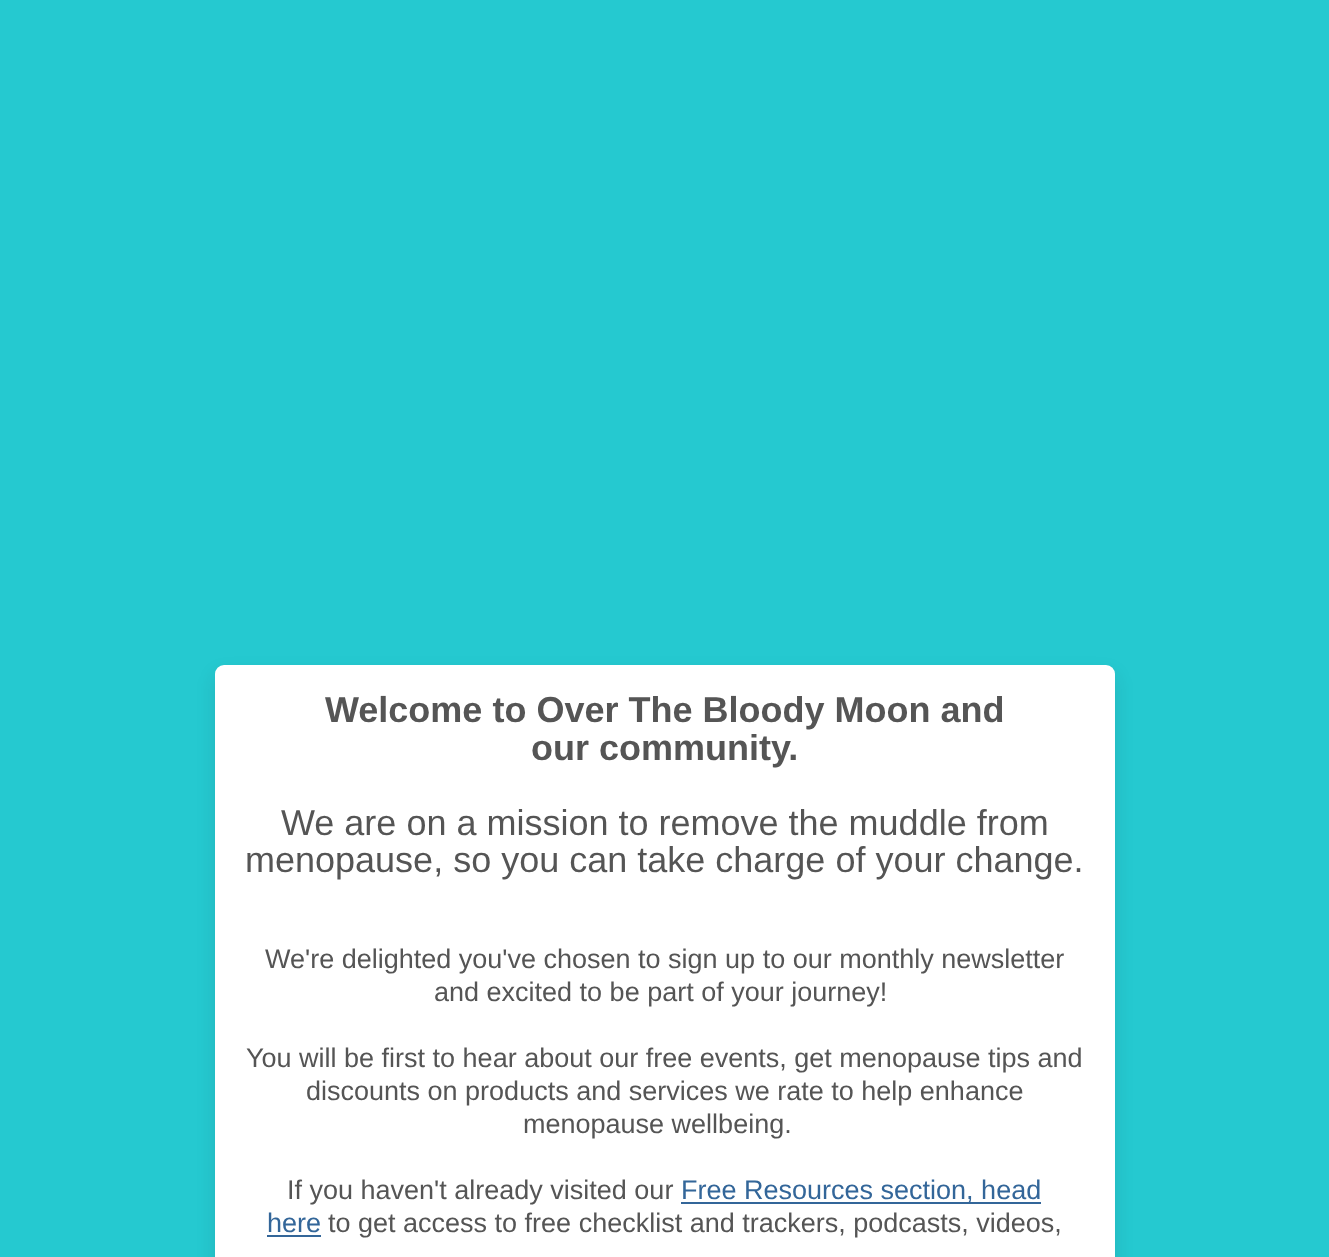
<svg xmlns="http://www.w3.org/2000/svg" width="1329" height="1257">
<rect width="100%" height="100%" fill="#25c9d0"/>
<rect x="215" y="674" width="900" height="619" rx="9" fill="#0d12161f" filter="blur(9px)"/>
<rect x="215" y="665" width="900" height="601" rx="9" fill="#fff"/>
<text x="325" y="722" style="font-family:Liberation Sans;font-size:36px;font-weight:bold;fill:#555">Welcome to Over The Bloody Moon and</text>
<text x="531" y="760" style="font-family:Liberation Sans;font-size:36px;font-weight:bold;fill:#555">our community.</text>
<text x="281" y="835" style="font-family:Liberation Sans;font-size:36px;fill:#555">We are on a mission to remove the muddle from</text>
<text x="245" y="872" style="font-family:Liberation Sans;font-size:36px;fill:#555">menopause, so you can take charge of your change.</text>
<text x="265" y="968" style="font-family:Liberation Sans;font-size:27px;fill:#555">We're delighted you've chosen to sign up to our monthly newsletter</text>
<text x="434" y="1001" style="font-family:Liberation Sans;font-size:27px;fill:#555">and excited to be part of your journey!</text>
<text x="246" y="1067" style="font-family:Liberation Sans;font-size:27px;fill:#555">You will be first to hear about our free events, get menopause tips and</text>
<text x="306" y="1100" style="font-family:Liberation Sans;font-size:27px;fill:#555">discounts on products and services we rate to help enhance</text>
<text x="523" y="1133" style="font-family:Liberation Sans;font-size:27px;fill:#555">menopause wellbeing.</text>
<text x="287" y="1199" style="font-family:Liberation Sans;font-size:27px;fill:#555">If you haven't already visited our</text>
<rect x="681" y="1202" width="360" height="2" fill="#369"/>
<text x="681" y="1199" style="font-family:Liberation Sans;font-size:27px;fill:#369">Free Resources section, head</text>
<text x="267" y="1232" style="font-family:Liberation Sans;font-size:27px;fill:#369">here</text>
<rect x="267" y="1235" width="54" height="2" fill="#369"/>
<text x="328" y="1232" style="font-family:Liberation Sans;font-size:27px;fill:#555">to get access to free checklist and trackers, podcasts, videos,</text>
</svg>
